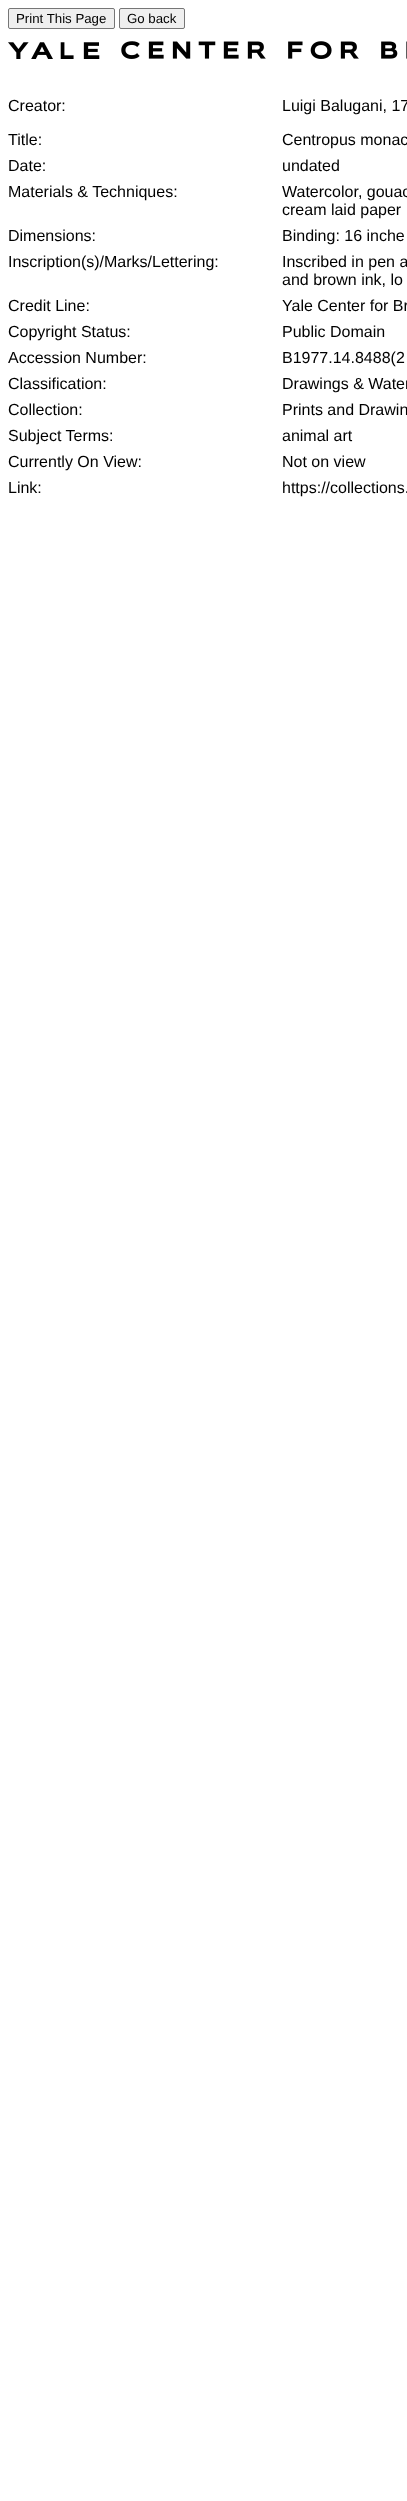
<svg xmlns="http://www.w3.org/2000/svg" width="407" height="2501">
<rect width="100%" height="100%" fill="#fff"/>
<rect x="8.5" y="8.5" width="106" height="20" rx="1.5" fill="#efefef" stroke="#767676"/>
<text x="16" y="23" style="font-family:Liberation Sans;font-size:13.25px;fill:#000">Print This Page</text>
<rect x="119.5" y="8.5" width="65" height="20" rx="1.5" fill="#efefef" stroke="#767676"/>
<text x="127" y="23" style="font-family:Liberation Sans;font-size:13.25px;fill:#000">Go back</text>
<image x="8" y="41" width="399" height="18" href="media/1.png"/>
<text x="8" y="111" style="font-family:Liberation Sans;font-size:16px;fill:#000">Creator:</text>
<text x="282" y="111" style="font-family:Liberation Sans;font-size:16px;fill:#000">Luigi Balugani, 17</text>
<text x="8" y="145" style="font-family:Liberation Sans;font-size:16px;fill:#000">Title:</text>
<text x="282" y="145" style="font-family:Liberation Sans;font-size:16px;fill:#000">Centropus monac</text>
<text x="8" y="171" style="font-family:Liberation Sans;font-size:16px;fill:#000">Date:</text>
<text x="282" y="171" style="font-family:Liberation Sans;font-size:16px;fill:#000">undated</text>
<text x="8" y="197" style="font-family:Liberation Sans;font-size:16px;fill:#000">Materials &amp; Techniques:</text>
<text x="282" y="197" style="font-family:Liberation Sans;font-size:16px;fill:#000">Watercolor, gouac</text>
<text x="282" y="215" style="font-family:Liberation Sans;font-size:16px;fill:#000">cream laid paper</text>
<text x="8" y="241" style="font-family:Liberation Sans;font-size:16px;fill:#000">Dimensions:</text>
<text x="282" y="241" style="font-family:Liberation Sans;font-size:16px;fill:#000">Binding: 16 inche</text>
<text x="8" y="267" style="font-family:Liberation Sans;font-size:16px;fill:#000">Inscription(s)/Marks/Lettering:</text>
<text x="282" y="267" style="font-family:Liberation Sans;font-size:16px;fill:#000">Inscribed in pen a</text>
<text x="282" y="285" style="font-family:Liberation Sans;font-size:16px;fill:#000">and brown ink, lo</text>
<text x="8" y="311" style="font-family:Liberation Sans;font-size:16px;fill:#000">Credit Line:</text>
<text x="282" y="311" style="font-family:Liberation Sans;font-size:16px;fill:#000">Yale Center for Br</text>
<text x="8" y="337" style="font-family:Liberation Sans;font-size:16px;fill:#000">Copyright Status:</text>
<text x="282" y="337" style="font-family:Liberation Sans;font-size:16px;fill:#000">Public Domain</text>
<text x="8" y="363" style="font-family:Liberation Sans;font-size:16px;fill:#000">Accession Number:</text>
<text x="282" y="363" style="font-family:Liberation Sans;font-size:16px;fill:#000">B1977.14.8488(2</text>
<text x="8" y="389" style="font-family:Liberation Sans;font-size:16px;fill:#000">Classification:</text>
<text x="282" y="389" style="font-family:Liberation Sans;font-size:16px;fill:#000">Drawings &amp; Water</text>
<text x="8" y="415" style="font-family:Liberation Sans;font-size:16px;fill:#000">Collection:</text>
<text x="282" y="415" style="font-family:Liberation Sans;font-size:16px;fill:#000">Prints and Drawin</text>
<text x="8" y="441" style="font-family:Liberation Sans;font-size:16px;fill:#000">Subject Terms:</text>
<text x="282" y="441" style="font-family:Liberation Sans;font-size:16px;fill:#000">animal art</text>
<text x="8" y="467" style="font-family:Liberation Sans;font-size:16px;fill:#000">Currently On View:</text>
<text x="282" y="467" style="font-family:Liberation Sans;font-size:16px;fill:#000">Not on view</text>
<text x="8" y="493" style="font-family:Liberation Sans;font-size:16px;fill:#000">Link:</text>
<text x="282" y="493" style="font-family:Liberation Sans;font-size:16px;fill:#000">https://collections.</text>
</svg>
